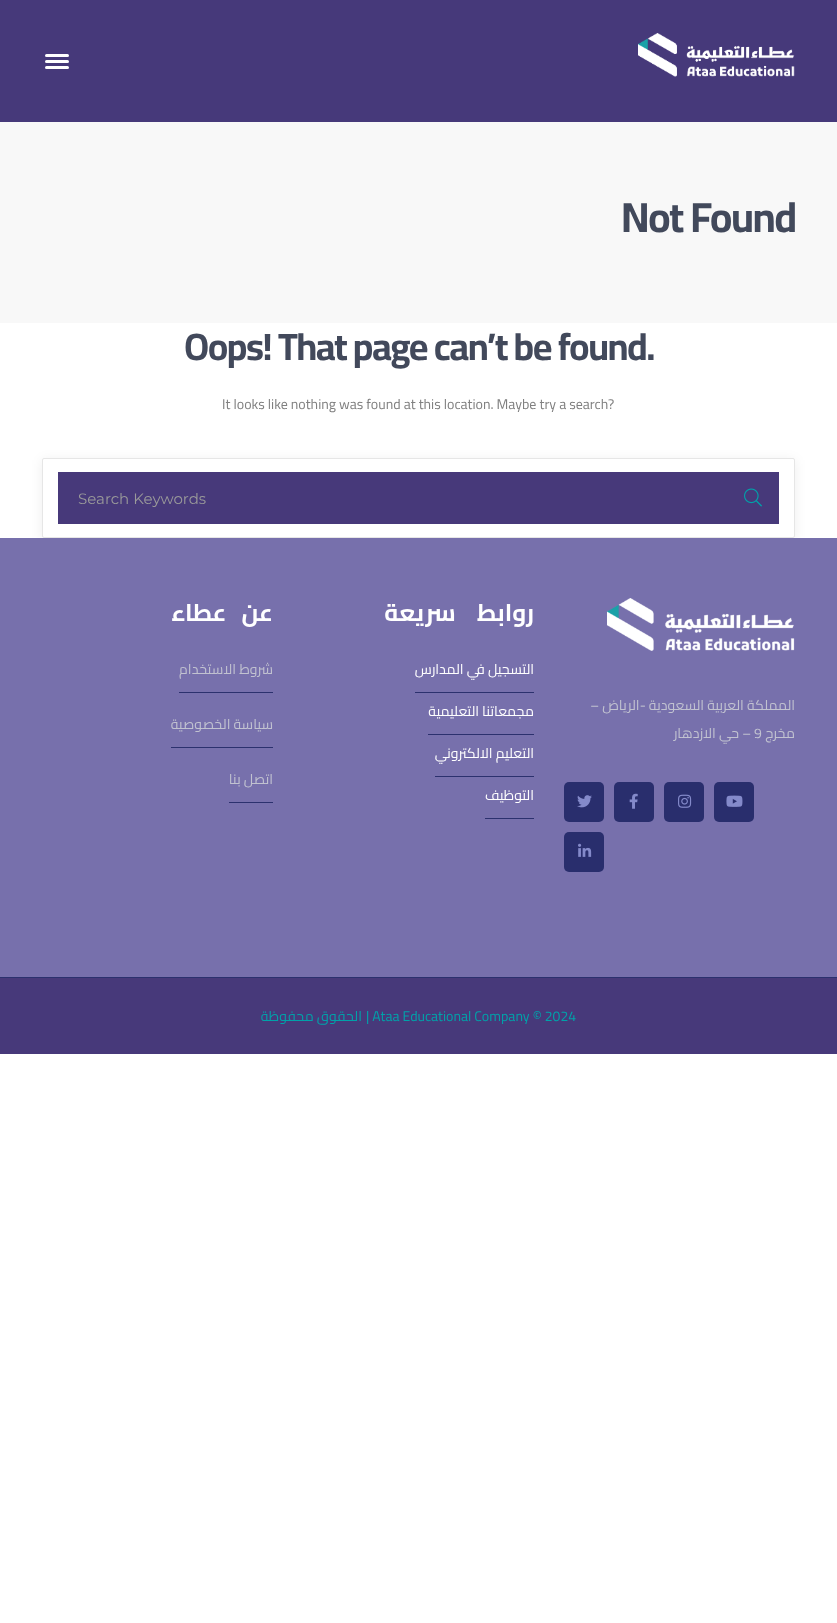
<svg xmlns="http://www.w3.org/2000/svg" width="837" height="1623">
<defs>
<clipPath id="clip1"><path d="M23 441h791v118h-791zm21 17h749c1 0 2 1 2 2v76c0 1-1 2-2 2h-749c-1 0-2-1-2-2v-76c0-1 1-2 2-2z" clip-rule="evenodd"/></clipPath>
</defs>
<rect width="100%" height="100%" fill="#fff"/>
<rect width="837" height="122" fill="#46397a"/>
<image x="638" y="33" width="157" height="44" href="media/1.png"/>
<rect x="45" y="54" width="24" height="3" rx="1.5" fill="#fff"/>
<rect x="45" y="60" width="24" height="3" rx="1.5" fill="#fff"/>
<rect x="45" y="66" width="24" height="3" rx="1.5" fill="#fff"/>
<rect y="122" width="837" height="201" fill="#f8f8f8"/>
<text x="621" y="232" style="font-family:Cairo;font-size:42px;font-weight:bold;letter-spacing:-1.5px;fill:#42495b">Not Found</text>
<text x="184" y="360" style="font-family:Cairo;font-size:38px;font-weight:bold;letter-spacing:-1.5px;fill:#42495b">Oops! That page can’t be found.</text>
<text x="222" y="409" style="font-family:Cairo;font-size:14px;fill:#808080">It looks like nothing was found at this location. Maybe try a search?</text>
<g clip-path="url(#clip1)">
<rect x="42" y="460" width="753" height="80" rx="2" fill="#00000012" filter="blur(6px)"/>
</g>
<rect x="42.5" y="458.5" width="752" height="79" rx="1.5" fill="none" stroke="#e6e6e6"/>
<rect x="58" y="472" width="721" height="52" fill="#47397a"/>
<image x="744" y="488" width="18" height="19" href="media/2.png"/>
<text x="78" y="504" style="font-family:Montserrat;font-size:15px;fill:#9a9a9a">Search Keywords</text>
<rect y="538" width="837" height="439" fill="#7770ac"/>
<image x="607" y="598" width="188" height="53" href="media/3.png"/>
<text x="795" y="710" style="font-family:Cairo;font-size:14px;direction:rtl;fill:#c1c2d0">المملكة العربية السعودية -الرياض –</text>
<text x="795" y="738" style="font-family:Cairo;font-size:14px;direction:rtl;fill:#c1c2d0">مخرج</text>
<text x="754" y="738" style="font-family:Cairo;font-size:14px;fill:#c1c2d0">9</text>
<text x="751" y="738" style="font-family:Cairo;font-size:14px;direction:rtl;fill:#c1c2d0">– حي الازدهار</text>
<rect x="714" y="782" width="40" height="40" rx="5" fill="#292e6d"/>
<image x="726" y="795" width="17" height="12" href="media/4.png"/>
<rect x="664" y="782" width="40" height="40" rx="5" fill="#292e6d"/>
<image x="678" y="794" width="14" height="14" href="media/5.png"/>
<rect x="614" y="782" width="40" height="40" rx="5" fill="#292e6d"/>
<image x="629" y="793" width="9" height="16" href="media/6.png"/>
<rect x="564" y="782" width="40" height="40" rx="5" fill="#292e6d"/>
<image x="577" y="795" width="15" height="13" href="media/7.png"/>
<rect x="564" y="832" width="40" height="40" rx="5" fill="#292e6d"/>
<image x="578" y="843" width="14" height="14" href="media/8.png"/>
<text x="534" y="621" word-spacing="16" style="font-family:Cairo;font-size:24px;font-weight:bold;letter-spacing:-1.5px;direction:rtl;fill:#fff">روابط سريعة</text>
<text x="534" y="674" style="font-family:Cairo;font-size:14px;direction:rtl;fill:#fff">التسجيل في المدارس</text>
<rect x="415" y="692" width="119" height="1" fill="#2c316e"/>
<text x="534" y="716" style="font-family:Cairo;font-size:14px;direction:rtl;fill:#fff">مجمعاتنا التعليمية</text>
<rect x="428" y="734" width="106" height="1" fill="#2c316e"/>
<text x="534" y="758" style="font-family:Cairo;font-size:14px;direction:rtl;fill:#fff">التعليم الالكتروني</text>
<rect x="435" y="776" width="99" height="1" fill="#2c316e"/>
<text x="534" y="800" style="font-family:Cairo;font-size:14px;direction:rtl;fill:#fff">التوظيف</text>
<rect x="485" y="818" width="49" height="1" fill="#2c316e"/>
<text x="273" y="621" word-spacing="10" style="font-family:Cairo;font-size:24px;font-weight:bold;letter-spacing:-1.5px;direction:rtl;fill:#fff">عن عطاء</text>
<text x="273" y="674" style="font-family:Cairo;font-size:14px;direction:rtl;fill:#c1c2d0">شروط الاستخدام</text>
<rect x="179" y="692" width="94" height="1" fill="#2c316e"/>
<text x="273" y="729" style="font-family:Cairo;font-size:14px;direction:rtl;fill:#c1c2d0">سياسة الخصوصية</text>
<rect x="171" y="747" width="102" height="1" fill="#2c316e"/>
<text x="273" y="784" style="font-family:Cairo;font-size:14px;direction:rtl;fill:#c1c2d0">اتصل بنا</text>
<rect x="229" y="802" width="44" height="1" fill="#2c316e"/>
<rect y="978" width="837" height="76" fill="#47397a"/>
<rect y="977" width="837" height="1" fill="#2c316e"/>
<text x="366" y="1021" style="font-family:Cairo;font-size:14px;fill:#00a2a9">| Ataa Educational Company © 2024</text>
<text x="362" y="1021" style="font-family:Cairo;font-size:14px;direction:rtl;fill:#00a2a9">الحقوق محفوظة</text>
</svg>
